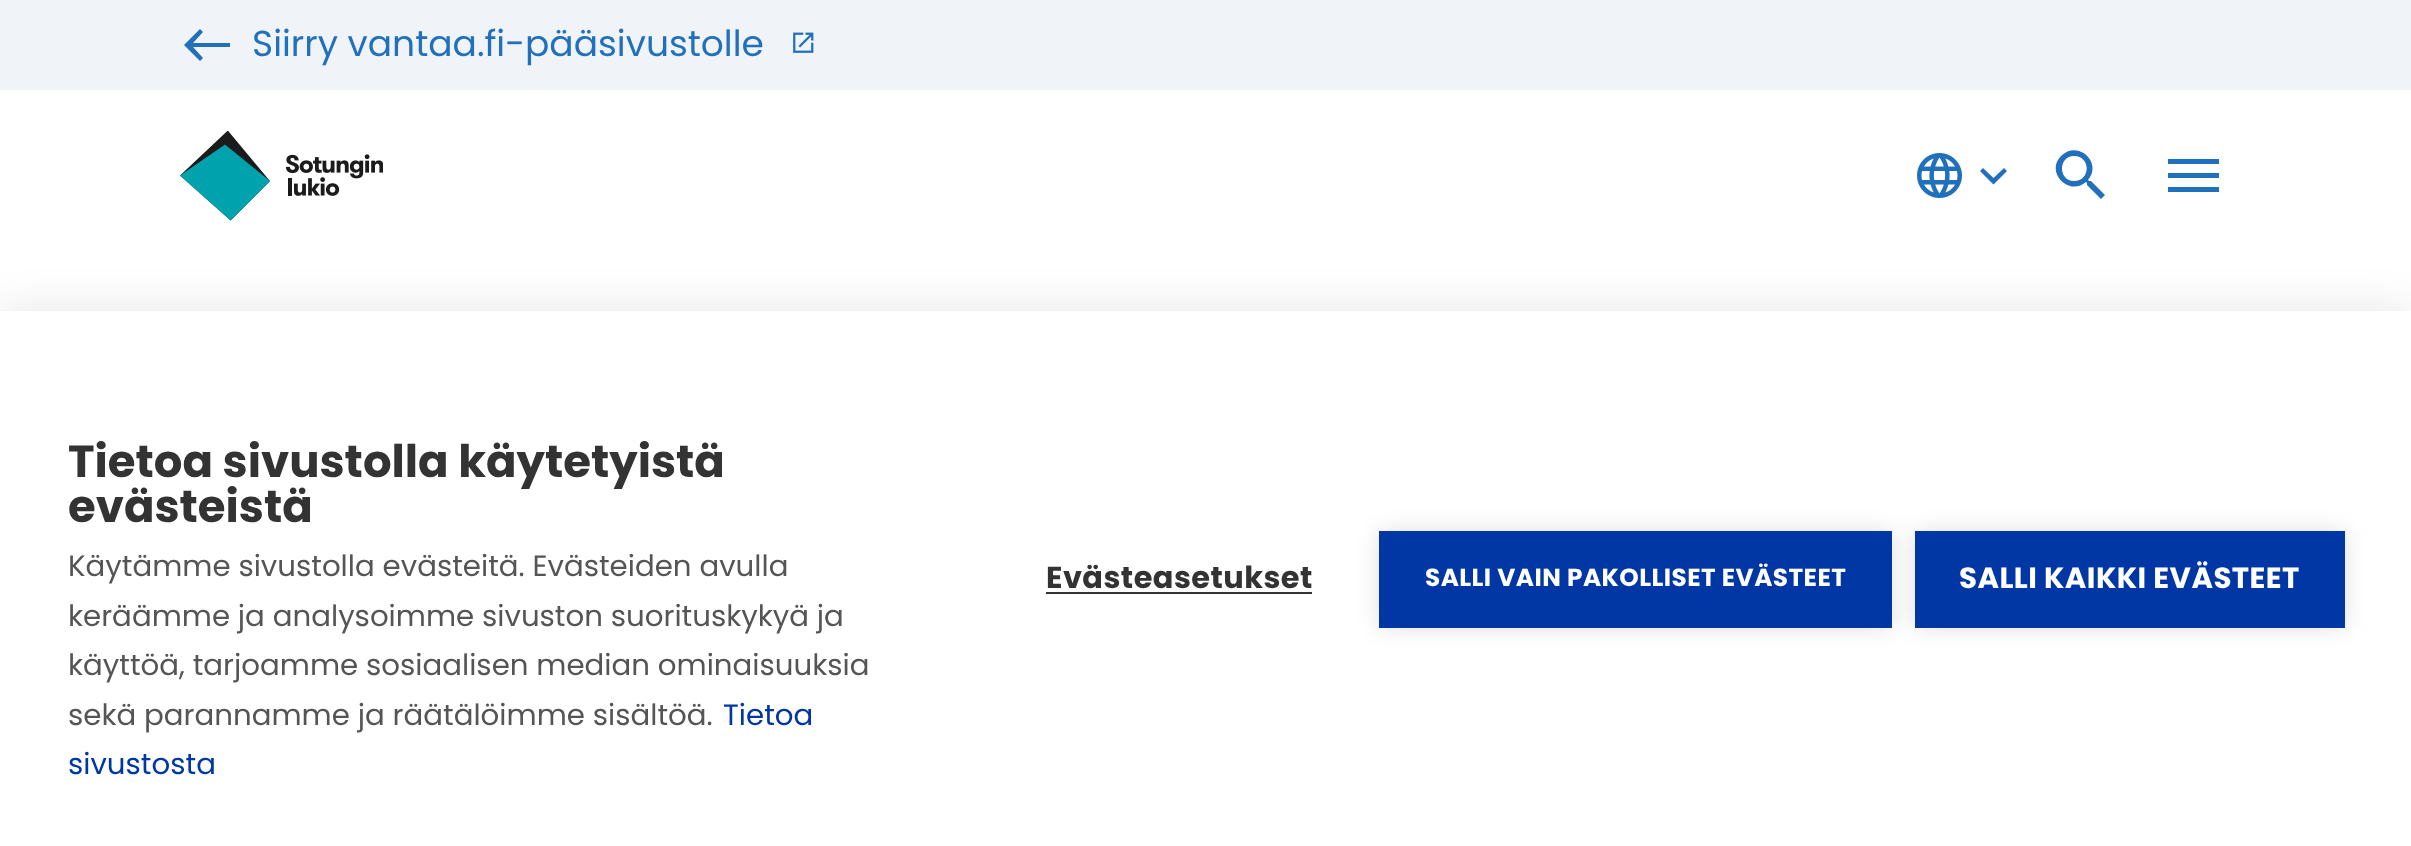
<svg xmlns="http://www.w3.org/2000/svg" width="2411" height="846">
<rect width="100%" height="100%" fill="#fff"/>
<rect width="2411" height="90" fill="#f0f3f8"/>
<path d="M200 61l3-3l-10-11h37v-4h-37l10-11l-3-3l-16 16z" fill="#2070bc"/>
<text x="252" y="56" style="font-family:Poppins;font-size:36px;fill:#2070bc">Siirry vantaa.fi-pääsivustolle</text>
<image x="793" y="32" width="21" height="21" href="media/1.png"/>
<image x="180" y="131" width="203" height="90" href="media/2.png"/>
<image x="1917" y="153" width="45" height="45" href="media/3.png"/>
<path d="M2004 168l-10.5 10l-10.5-10l-3 3l13.5 13.5l13.5-13.5z" fill="#2070bc"/>
<path d="M2091 181h-2l-1-1c15-17-10-41-27-24c-16 16 8 41 25 26l1 1v2l14 14l4-4zm-17 0c-16 0-16-25 0-25c17 0 17 25 0 25z" fill="#2070bc"/>
<path d="M2168 192h51v-5h-51zm0-14h51v-5h-51zm0-19v5h51v-5z" fill="#2070bc"/>
<rect y="311" width="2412" height="535" fill="#0000001a" filter="blur(22.5px)"/>
<rect y="311" width="2411" height="535" fill="#fff"/>
<text x="68" y="477" style="font-family:Poppins;font-size:45px;font-weight:bold;fill:#333">Tietoa sivustolla käytetyistä</text>
<text x="68" y="522" style="font-family:Poppins;font-size:45px;font-weight:bold;fill:#333">evästeistä</text>
<text x="68" y="576" style="font-family:Poppins;font-size:29.25px;fill:#555">Käytämme sivustolla evästeitä. Evästeiden avulla</text>
<text x="68" y="626" style="font-family:Poppins;font-size:29.25px;fill:#555">keräämme ja analysoimme sivuston suorituskykyä ja</text>
<text x="68" y="675" style="font-family:Poppins;font-size:29.25px;fill:#555">käyttöä, tarjoamme sosiaalisen median ominaisuuksia</text>
<text x="68" y="725" style="font-family:Poppins;font-size:29.25px;fill:#555">sekä parannamme ja räätälöimme sisältöä.</text>
<text x="723" y="725" style="font-family:Poppins;font-size:29.25px;fill:#0037a5">Tietoa</text>
<text x="68" y="774" style="font-family:Poppins;font-size:29.25px;fill:#0037a5">sivustosta</text>
<text x="1046" y="588" style="font-family:Poppins;font-size:30.4px;font-weight:bold;letter-spacing:0.45px;fill:#333">Evästeasetukset</text>
<rect x="1046" y="592" width="266" height="2" fill="#333"/>
<rect x="1379" y="531" width="513" height="97" fill="#0000001f" filter="blur(11px)"/>
<rect x="1379" y="531" width="513" height="97" fill="#0037a5"/>
<text x="1425" y="586" style="font-family:Poppins;font-size:24.75px;font-weight:bold;letter-spacing:0.45px;fill:#fff">SALLI VAIN PAKOLLISET EVÄSTEET</text>
<rect x="1915" y="531" width="430" height="97" fill="#0000001f" filter="blur(11px)"/>
<rect x="1915" y="531" width="430" height="97" fill="#0037a5"/>
<text x="1959" y="588" style="font-family:Poppins;font-size:29.25px;font-weight:bold;letter-spacing:0.45px;fill:#fff">SALLI KAIKKI EVÄSTEET</text>
</svg>
